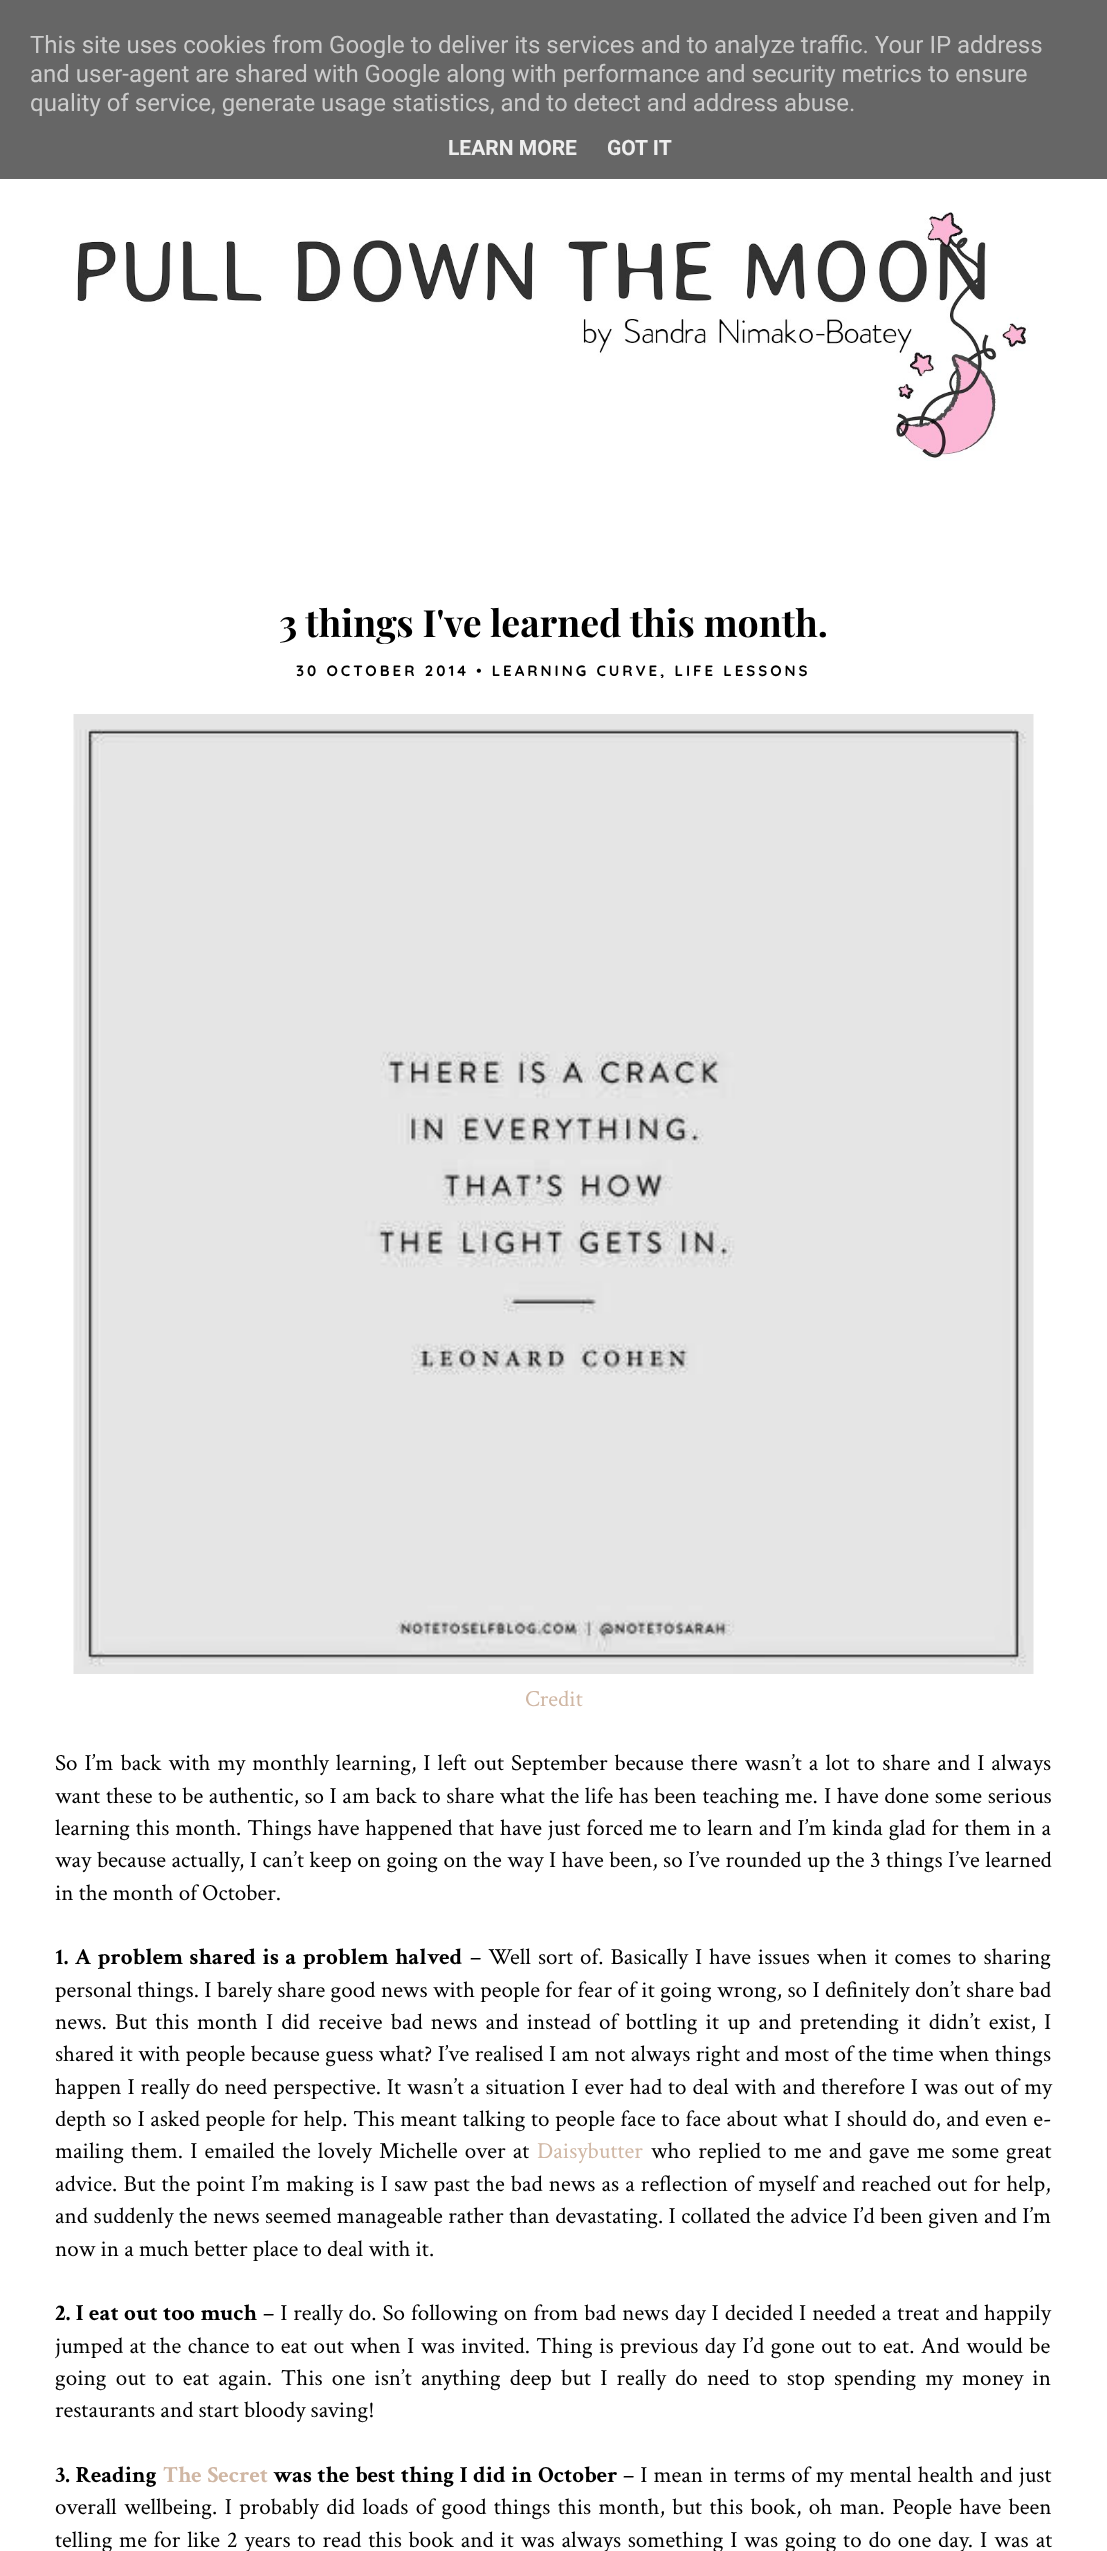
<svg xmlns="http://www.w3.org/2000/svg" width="1107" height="2551">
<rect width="100%" height="100%" fill="#fff"/>
<rect width="1107" height="179" fill="#666"/>
<text x="30" y="53" style="font-family:Roboto;font-size:24px;fill:#ccc">This site uses cookies from Google to deliver its services and to analyze traffic. Your IP address</text>
<text x="30" y="82" style="font-family:Roboto;font-size:24px;fill:#ccc">and user-agent are shared with Google along with performance and security metrics to ensure</text>
<text x="30" y="111" style="font-family:Roboto;font-size:24px;fill:#ccc">quality of service, generate usage statistics, and to detect and address abuse.</text>
<text x="448" y="155" style="font-family:Roboto;font-size:21px;font-weight:bold;fill:#eee">LEARN MORE</text>
<text x="607" y="155" style="font-family:Roboto;font-size:21px;font-weight:bold;fill:#eee">GOT IT</text>
<image x="77" y="212" width="953" height="249" href="media/1.png"/>
<text x="279" y="637" style="font-family:Playfair Display;font-size:37.5px;font-weight:bold;fill:#000">3 things I've learned this month.</text>
<text x="296" y="676" style="font-family:Quicksand;font-size:15px;font-weight:300;letter-spacing:3px;fill:#000">30 OCTOBER 2014 • LEARNING CURVE, LIFE LESSONS</text>
<image x="73" y="714" width="961" height="960" href="media/2.png"/>
<text x="525" y="1706" style="font-family:Crimson Text;font-size:23.1px;fill:#d0b7a4">Credit</text>
<text x="55" y="1770" word-spacing="1.85" style="font-family:Crimson Text;font-size:23.1px;fill:#000">So I’m back with my monthly learning, I left out September because there wasn’t a lot to share and I always</text>
<text x="55" y="1803" word-spacing="0.4" style="font-family:Crimson Text;font-size:23.1px;fill:#000">want these to be authentic, so I am back to share what the life has been teaching me.</text>
<text x="824" y="1803" word-spacing="0.5" style="font-family:Crimson Text;font-size:23.1px;fill:#000">I have done some serious</text>
<text x="55" y="1835" word-spacing="0.7" style="font-family:Crimson Text;font-size:23.1px;fill:#000">learning this month. Things have happened that have just forced me to learn and I’m kinda glad for them in a</text>
<text x="55" y="1867" word-spacing="0.4" style="font-family:Crimson Text;font-size:23.1px;fill:#000">way because actually, I can’t keep on going on the way I have been, so I’ve rounded up the 3 things I’ve learned</text>
<text x="55" y="1900" style="font-family:Crimson Text;font-size:23.1px;fill:#000">in the month of October.</text>
<text x="55" y="1964" word-spacing="1.75" style="font-family:Crimson Text;font-size:23.1px;font-weight:bold;fill:#000">1. A problem shared is a problem halved</text>
<text x="470" y="1964" word-spacing="1.75" style="font-family:Crimson Text;font-size:23.1px;fill:#000">– Well sort of. Basically I have issues when it comes to sharing</text>
<text x="55" y="1997" word-spacing="0.25" style="font-family:Crimson Text;font-size:23.1px;fill:#000">personal things. I barely share good news with people for fear of it going wrong, so I definitely don’t share bad</text>
<text x="55" y="2029" word-spacing="3" style="font-family:Crimson Text;font-size:23.1px;fill:#000">news. But this month I did receive bad news and instead of bottling it up and pretending it didn’t exist, I</text>
<text x="55" y="2061" word-spacing="0.25" style="font-family:Crimson Text;font-size:23.1px;fill:#000">shared it with people because guess what? I’ve realised I am not always right and most of the time when things</text>
<text x="55" y="2094" word-spacing="0.75" style="font-family:Crimson Text;font-size:23.1px;fill:#000">happen I really do need perspective. It wasn’t a situation I ever had to deal with and therefore I was out of my</text>
<text x="55" y="2126" word-spacing="0.5" style="font-family:Crimson Text;font-size:23.1px;fill:#000">depth so I asked people for help. This meant talking to people face to face about what I should do, and even e-</text>
<text x="55" y="2158" word-spacing="2" style="font-family:Crimson Text;font-size:23.1px;fill:#000">mailing them. I emailed the lovely Michelle over at</text>
<text x="537" y="2158" style="font-family:Crimson Text;font-size:23.1px;fill:#d0b7a4">Daisybutter</text>
<text x="651" y="2158" word-spacing="2" style="font-family:Crimson Text;font-size:23.1px;fill:#000">who replied to me and gave me some great</text>
<text x="55" y="2191" word-spacing="0.9" style="font-family:Crimson Text;font-size:23.1px;fill:#000">advice. But the point I’m making is I saw past the bad news as a reflection of myself and reached out for help,</text>
<text x="55" y="2223" word-spacing="0.25" style="font-family:Crimson Text;font-size:23.1px;fill:#000">and suddenly the news seemed manageable rather than devastating. I collated the advice I’d been given and I’m</text>
<text x="55" y="2256" style="font-family:Crimson Text;font-size:23.1px;fill:#000">now in a much better place to deal with it.</text>
<text x="55" y="2320" word-spacing="0.75" style="font-family:Crimson Text;font-size:23.1px;font-weight:bold;fill:#000">2. I eat out too much</text>
<text x="263" y="2320" word-spacing="0.75" style="font-family:Crimson Text;font-size:23.1px;fill:#000">– I really do. So following on from bad news day I decided I needed a treat and happily</text>
<text x="55" y="2353" word-spacing="1.25" style="font-family:Crimson Text;font-size:23.1px;fill:#000">jumped at the chance to eat out when I was invited. Thing is previous day I’d gone out to eat. And would be</text>
<text x="55" y="2385" word-spacing="4" style="font-family:Crimson Text;font-size:23.1px;fill:#000">going out to eat again. This one isn’t anything deep but I really do need to stop spending my money in</text>
<text x="55" y="2417" style="font-family:Crimson Text;font-size:23.1px;fill:#000">restaurants and start bloody saving!</text>
<text x="55" y="2482" word-spacing="0.9" style="font-family:Crimson Text;font-size:23.1px;font-weight:bold;fill:#000">3. Reading</text>
<text x="163" y="2482" word-spacing="1" style="font-family:Crimson Text;font-size:23.1px;font-weight:bold;fill:#d0b7a4">The Secret</text>
<text x="273" y="2482" word-spacing="0.9" style="font-family:Crimson Text;font-size:23.1px;font-weight:bold;fill:#000">was the best thing I did in October</text>
<text x="623" y="2482" word-spacing="0.9" style="font-family:Crimson Text;font-size:23.1px;fill:#000">– I mean in terms of my mental health and just</text>
<text x="55" y="2514" word-spacing="2.25" style="font-family:Crimson Text;font-size:23.1px;fill:#000">overall wellbeing. I probably did loads of good things this month, but this book, oh man. People have been</text>
<text x="55" y="2547" word-spacing="1.55" style="font-family:Crimson Text;font-size:23.1px;fill:#000">telling me for like 2 years to read this book and it was always something I was going to do one day.</text>
<text x="980" y="2547" word-spacing="2" style="font-family:Crimson Text;font-size:23.1px;fill:#000">I was at</text>
</svg>
